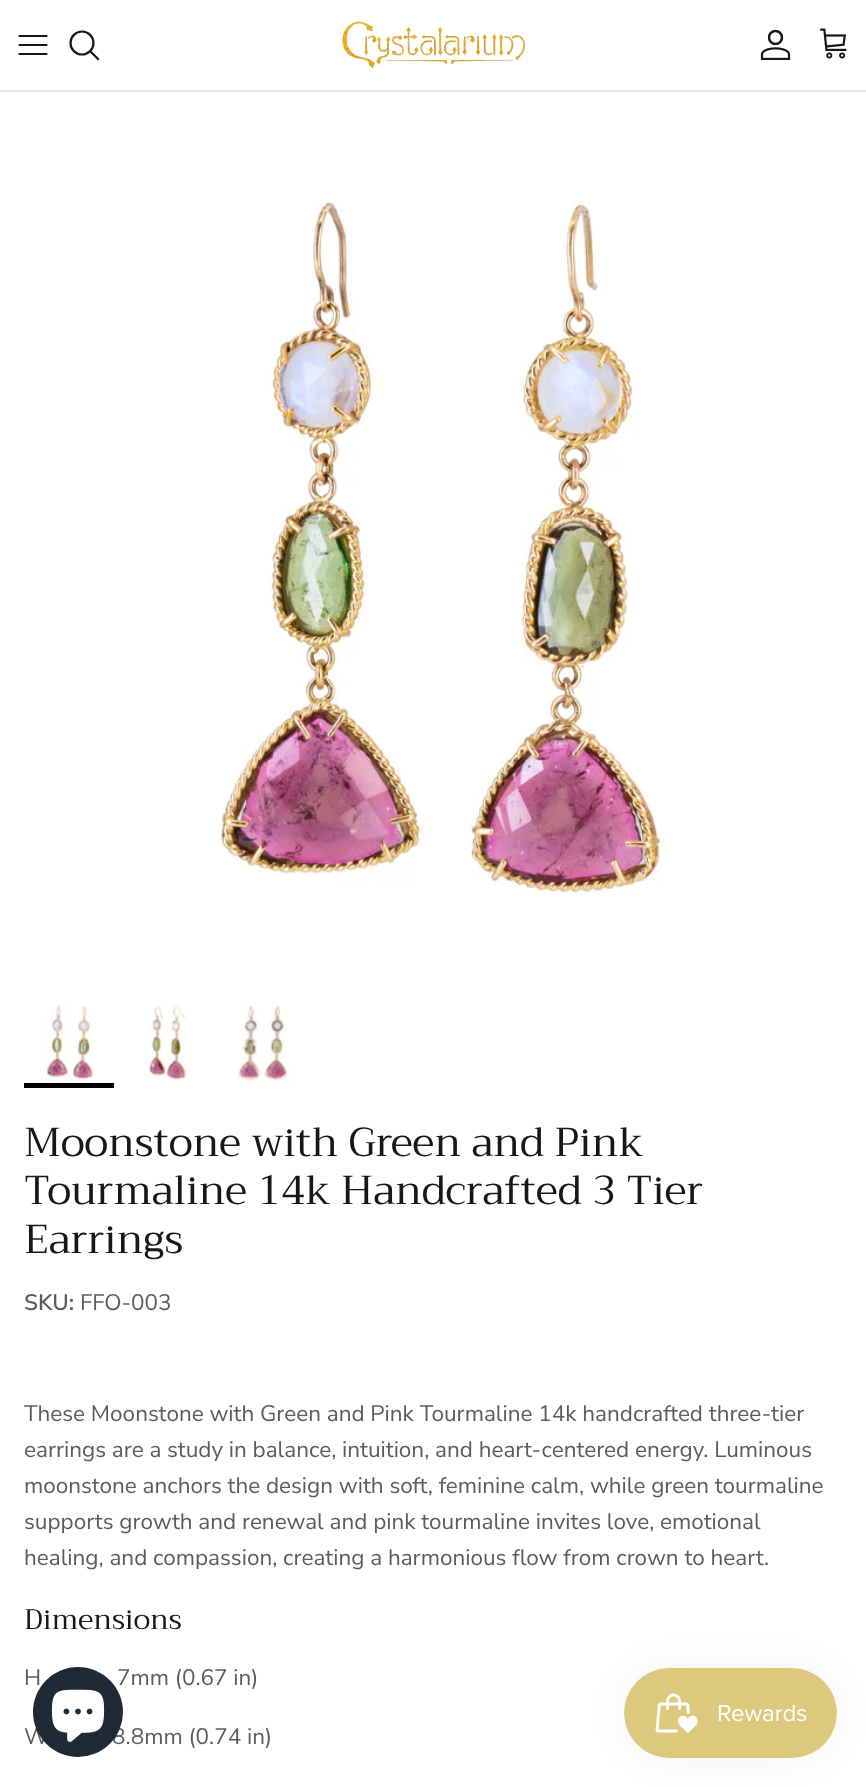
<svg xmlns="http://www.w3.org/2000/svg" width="866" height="1787">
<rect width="100%" height="100%" fill="#fff"/>
<rect y="90" width="866" height="2" fill="#dfe3e8"/>
<path d="M19.5 45h27m-27-9h27m-27 18h27" fill="none" stroke="#171717" stroke-width="2.2" stroke-linecap="round" stroke-linejoin="round"/>
<circle cx="82" cy="43" r="11.5" fill="none" stroke="#171717" stroke-width="2.2"/>
<path d="M91.5 52.5l6.5 6.5" fill="none" stroke="#171717" stroke-width="2.2" stroke-linecap="square"/>
<image x="342" y="21" width="184" height="47" href="media/1.png"/>
<image x="760" y="29" width="31" height="31" href="media/2.png"/>
<image x="820" y="28" width="27" height="31" href="media/3.png"/>
<image x="218" y="201" width="448" height="693" href="media/4.png"/>
<image x="45" y="1005" width="49" height="78" href="media/5.png"/>
<rect x="24" y="1083" width="90" height="5" fill="#000"/>
<image x="144" y="1005" width="44" height="76" href="media/6.png"/>
<image x="237" y="1005" width="59" height="81" href="media/7.png"/>
<text x="24" y="1156" style="font-family:Trirong;font-size:40.5px;fill:#171717">Moonstone with Green and Pink</text>
<text x="24" y="1204" style="font-family:Trirong;font-size:40.5px;fill:#171717">Tourmaline 14k Handcrafted 3 Tier</text>
<text x="24" y="1253" style="font-family:Trirong;font-size:40.5px;fill:#171717">Earrings</text>
<text x="24" y="1310" style="font-family:Nunito Sans;font-size:22.5px;font-weight:600;fill:#5c5c5c">SKU:</text>
<text x="80" y="1310" style="font-family:Nunito Sans;font-size:22.5px;fill:#5c5c5c">FFO-003</text>
<text x="24" y="1421" style="font-family:Nunito Sans;font-size:22.5px;fill:#5c5c5c">These Moonstone with Green and Pink Tourmaline 14k handcrafted three-tier</text>
<text x="24" y="1457" style="font-family:Nunito Sans;font-size:22.5px;fill:#5c5c5c">earrings are a study in balance, intuition, and heart-centered energy. Luminous</text>
<text x="24" y="1493" style="font-family:Nunito Sans;font-size:22.5px;fill:#5c5c5c">moonstone anchors the design with soft, feminine calm, while green tourmaline</text>
<text x="24" y="1529" style="font-family:Nunito Sans;font-size:22.5px;fill:#5c5c5c">supports growth and renewal and pink tourmaline invites love, emotional</text>
<text x="24" y="1565" style="font-family:Nunito Sans;font-size:22.5px;fill:#5c5c5c">healing, and compassion, creating a harmonious flow from crown to heart.</text>
<text x="24" y="1629" style="font-family:Trirong;font-size:28.25px;fill:#171717">Dimensions</text>
<text x="24" y="1685" style="font-family:Nunito Sans;font-size:22.5px;fill:#5c5c5c">H</text>
<text x="117" y="1685" style="font-family:Nunito Sans;font-size:22.5px;fill:#5c5c5c">7mm (0.67 in)</text>
<text x="24" y="1744" style="font-family:Nunito Sans;font-size:22.5px;fill:#5c5c5c">W</text>
<text x="112" y="1744" style="font-family:Nunito Sans;font-size:22.5px;fill:#5c5c5c">8.8mm (0.74 in)</text>
<circle cx="78" cy="1712" r="45" fill="#202a36"/>
<image x="51" y="1689" width="54" height="53" href="media/8.png"/>
<rect x="624" y="1668" width="213" height="90" rx="45" fill="#0000000d" filter="blur(19px)"/>
<image x="624" y="1668" width="213" height="90" href="media/9.png"/>
</svg>
